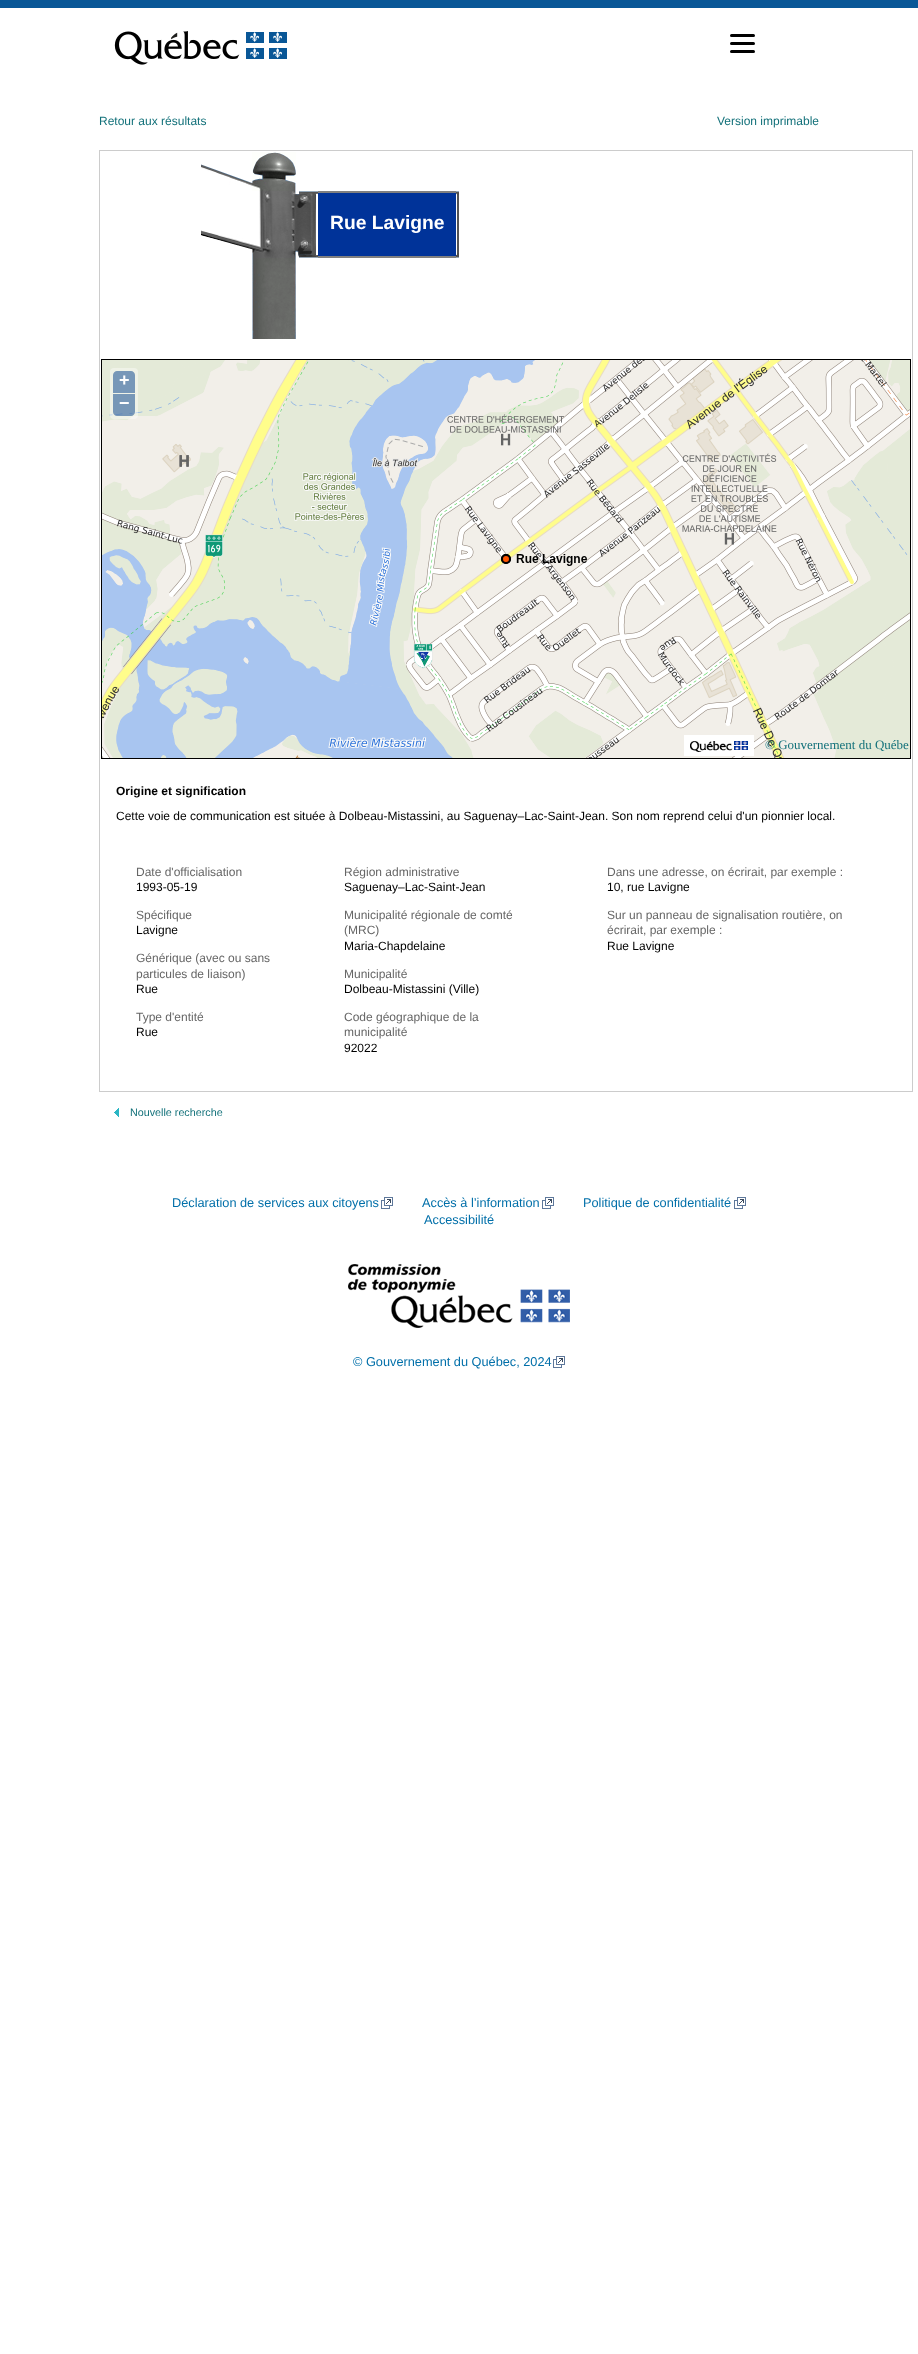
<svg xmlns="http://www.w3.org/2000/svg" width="918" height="2354">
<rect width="100%" height="100%" fill="#fff"/>
<rect width="918" height="8" fill="#095797"/>
<image x="114" y="31" width="173" height="34" href="media/1.png"/>
<rect x="730" y="42" width="25" height="3" rx="1.5" fill="#000"/>
<rect x="730" y="34" width="25" height="3" rx="1.5" fill="#000"/>
<rect x="730" y="50" width="25" height="3" rx="1.5" fill="#000"/>
<text x="99" y="125" style="font-family:Liberation Sans;font-size:12px;fill:#13717a">Retour aux résultats</text>
<text x="717" y="125" style="font-family:Liberation Sans;font-size:12px;fill:#13717a">Version imprimable</text>
<rect x="99" y="150" width="814" height="1" fill="#ccc"/>
<rect x="912" y="150" width="1" height="942" fill="#ccc"/>
<rect x="99" y="1091" width="814" height="1" fill="#ccc"/>
<rect x="99" y="150" width="1" height="942" fill="#ccc"/>
<image x="201" y="164" width="51" height="22" href="media/2.png"/>
<image x="252" y="152" width="44" height="39" href="media/3.png"/>
<image x="252" y="191" width="44" height="67" href="media/4.png"/>
<image x="296" y="191" width="21" height="67" href="media/5.png"/>
<image x="317" y="191" width="1" height="67" href="media/6.png"/>
<rect x="318" y="193" width="138" height="63" fill="#039"/>
<rect x="318" y="191" width="138" height="2" fill="#808080"/>
<rect x="318" y="256" width="138" height="2" fill="#808080"/>
<text x="330" y="229" style="font-family:Liberation Sans;font-size:19.25px;font-weight:bold;fill:#fff">Rue Lavigne</text>
<image x="456" y="191" width="3" height="67" href="media/7.png"/>
<image x="201" y="230" width="51" height="20" href="media/8.png"/>
<image x="252" y="258" width="44" height="81" href="media/9.png"/>
<rect x="101.5" y="359.5" width="809" height="399" fill="none" stroke="#000"/>
<image x="102" y="360" width="131" height="247" href="media/10.png"/>
<image x="233" y="360" width="256" height="247" href="media/11.png"/>
<image x="489" y="360" width="256" height="247" href="media/12.png"/>
<image x="745" y="360" width="165" height="247" href="media/13.png"/>
<image x="102" y="607" width="131" height="151" href="media/14.png"/>
<image x="233" y="607" width="256" height="151" href="media/15.png"/>
<image x="489" y="607" width="256" height="151" href="media/16.png"/>
<image x="745" y="607" width="165" height="151" href="media/17.png"/>
<circle cx="506" cy="559" r="4" fill="#f50" stroke="#000" stroke-width="2"/>
<rect x="110" y="368" width="28" height="51" rx="4" fill="#ffffff66"/>
<path d="M117 371h14c2 0 4 2 4 4v18h-22v-18c0-2 2-4 4-4z" fill="#7797b8"/>
<text x="119" y="386" style="font-family:Liberation Sans;font-size:18px;font-weight:bold;fill:#fff">+</text>
<path d="M113 394h22v18c0 2-2 4-4 4h-14c-2 0-4-2-4-4z" fill="#003c8880"/>
<text x="119" y="409" style="font-family:Liberation Sans;font-size:18px;font-weight:bold;fill:#fff">−</text>
<image x="684" y="735" width="70" height="21" href="media/18.png"/>
<text x="765" y="749" style="font-family:Liberation Serif;font-size:13px;fill:#13717a">© Gouvernement du Québe</text>
<text x="116" y="795" style="font-family:Liberation Sans;font-size:12px;font-weight:bold;fill:#000">Origine et signification</text>
<text x="116" y="820" style="font-family:Liberation Sans;font-size:12px;fill:#000">Cette voie de communication est située à Dolbeau-Mistassini, au Saguenay–Lac-Saint-Jean. Son nom reprend celui d'un pionnier local.</text>
<text x="136" y="876" style="font-family:Liberation Sans;font-size:12px;fill:#666">Date d'officialisation</text>
<text x="136" y="891" style="font-family:Liberation Sans;font-size:12px;fill:#000">1993-05-19</text>
<text x="136" y="919" style="font-family:Liberation Sans;font-size:12px;fill:#666">Spécifique</text>
<text x="136" y="934" style="font-family:Liberation Sans;font-size:12px;fill:#000">Lavigne</text>
<text x="136" y="962" style="font-family:Liberation Sans;font-size:12px;fill:#666">Générique (avec ou sans</text>
<text x="136" y="978" style="font-family:Liberation Sans;font-size:12px;fill:#666">particules de liaison)</text>
<text x="136" y="993" style="font-family:Liberation Sans;font-size:12px;fill:#000">Rue</text>
<text x="136" y="1021" style="font-family:Liberation Sans;font-size:12px;fill:#666">Type d'entité</text>
<text x="136" y="1036" style="font-family:Liberation Sans;font-size:12px;fill:#000">Rue</text>
<text x="344" y="876" style="font-family:Liberation Sans;font-size:12px;fill:#666">Région administrative</text>
<text x="344" y="891" style="font-family:Liberation Sans;font-size:12px;fill:#000">Saguenay–Lac-Saint-Jean</text>
<text x="344" y="919" style="font-family:Liberation Sans;font-size:12px;fill:#666">Municipalité régionale de comté</text>
<text x="344" y="934" style="font-family:Liberation Sans;font-size:12px;fill:#666">(MRC)</text>
<text x="344" y="950" style="font-family:Liberation Sans;font-size:12px;fill:#000">Maria-Chapdelaine</text>
<text x="344" y="978" style="font-family:Liberation Sans;font-size:12px;fill:#666">Municipalité</text>
<text x="344" y="993" style="font-family:Liberation Sans;font-size:12px;fill:#000">Dolbeau-Mistassini (Ville)</text>
<text x="344" y="1021" style="font-family:Liberation Sans;font-size:12px;fill:#666">Code géographique de la</text>
<text x="344" y="1036" style="font-family:Liberation Sans;font-size:12px;fill:#666">municipalité</text>
<text x="344" y="1052" style="font-family:Liberation Sans;font-size:12px;fill:#000">92022</text>
<text x="607" y="876" style="font-family:Liberation Sans;font-size:12px;fill:#666">Dans une adresse, on écrirait, par exemple :</text>
<text x="607" y="891" style="font-family:Liberation Sans;font-size:12px;fill:#000">10, rue Lavigne</text>
<text x="607" y="919" style="font-family:Liberation Sans;font-size:12px;fill:#666">Sur un panneau de signalisation routière, on</text>
<text x="607" y="934" style="font-family:Liberation Sans;font-size:12px;fill:#666">écrirait, par exemple :</text>
<text x="607" y="950" style="font-family:Liberation Sans;font-size:12px;fill:#000">Rue Lavigne</text>
<image x="114" y="1108" width="5" height="9" href="media/19.png"/>
<text x="130" y="1116" style="font-family:Liberation Sans;font-size:10.75px;fill:#13717a">Nouvelle recherche</text>
<text x="172" y="1207" style="font-family:Liberation Sans;font-size:12.75px;fill:#006fa9">Déclaration de services aux citoyens</text>
<image x="381" y="1197" width="12" height="12" href="media/20.png"/>
<text x="422" y="1207" style="font-family:Liberation Sans;font-size:12.75px;fill:#006fa9">Accès à l’information</text>
<image x="542" y="1197" width="12" height="12" href="media/20.png"/>
<text x="583" y="1207" style="font-family:Liberation Sans;font-size:12.75px;fill:#006fa9">Politique de confidentialité</text>
<image x="734" y="1197" width="12" height="12" href="media/20.png"/>
<text x="424" y="1224" style="font-family:Liberation Sans;font-size:12.75px;fill:#006fa9">Accessibilité</text>
<image x="348" y="1264" width="222" height="64" href="media/21.png"/>
<text x="353" y="1366" style="font-family:Liberation Sans;font-size:12.75px;fill:#006fa9">© Gouvernement du Québec, 2024</text>
<image x="553" y="1356" width="12" height="12" href="media/20.png"/>
</svg>
